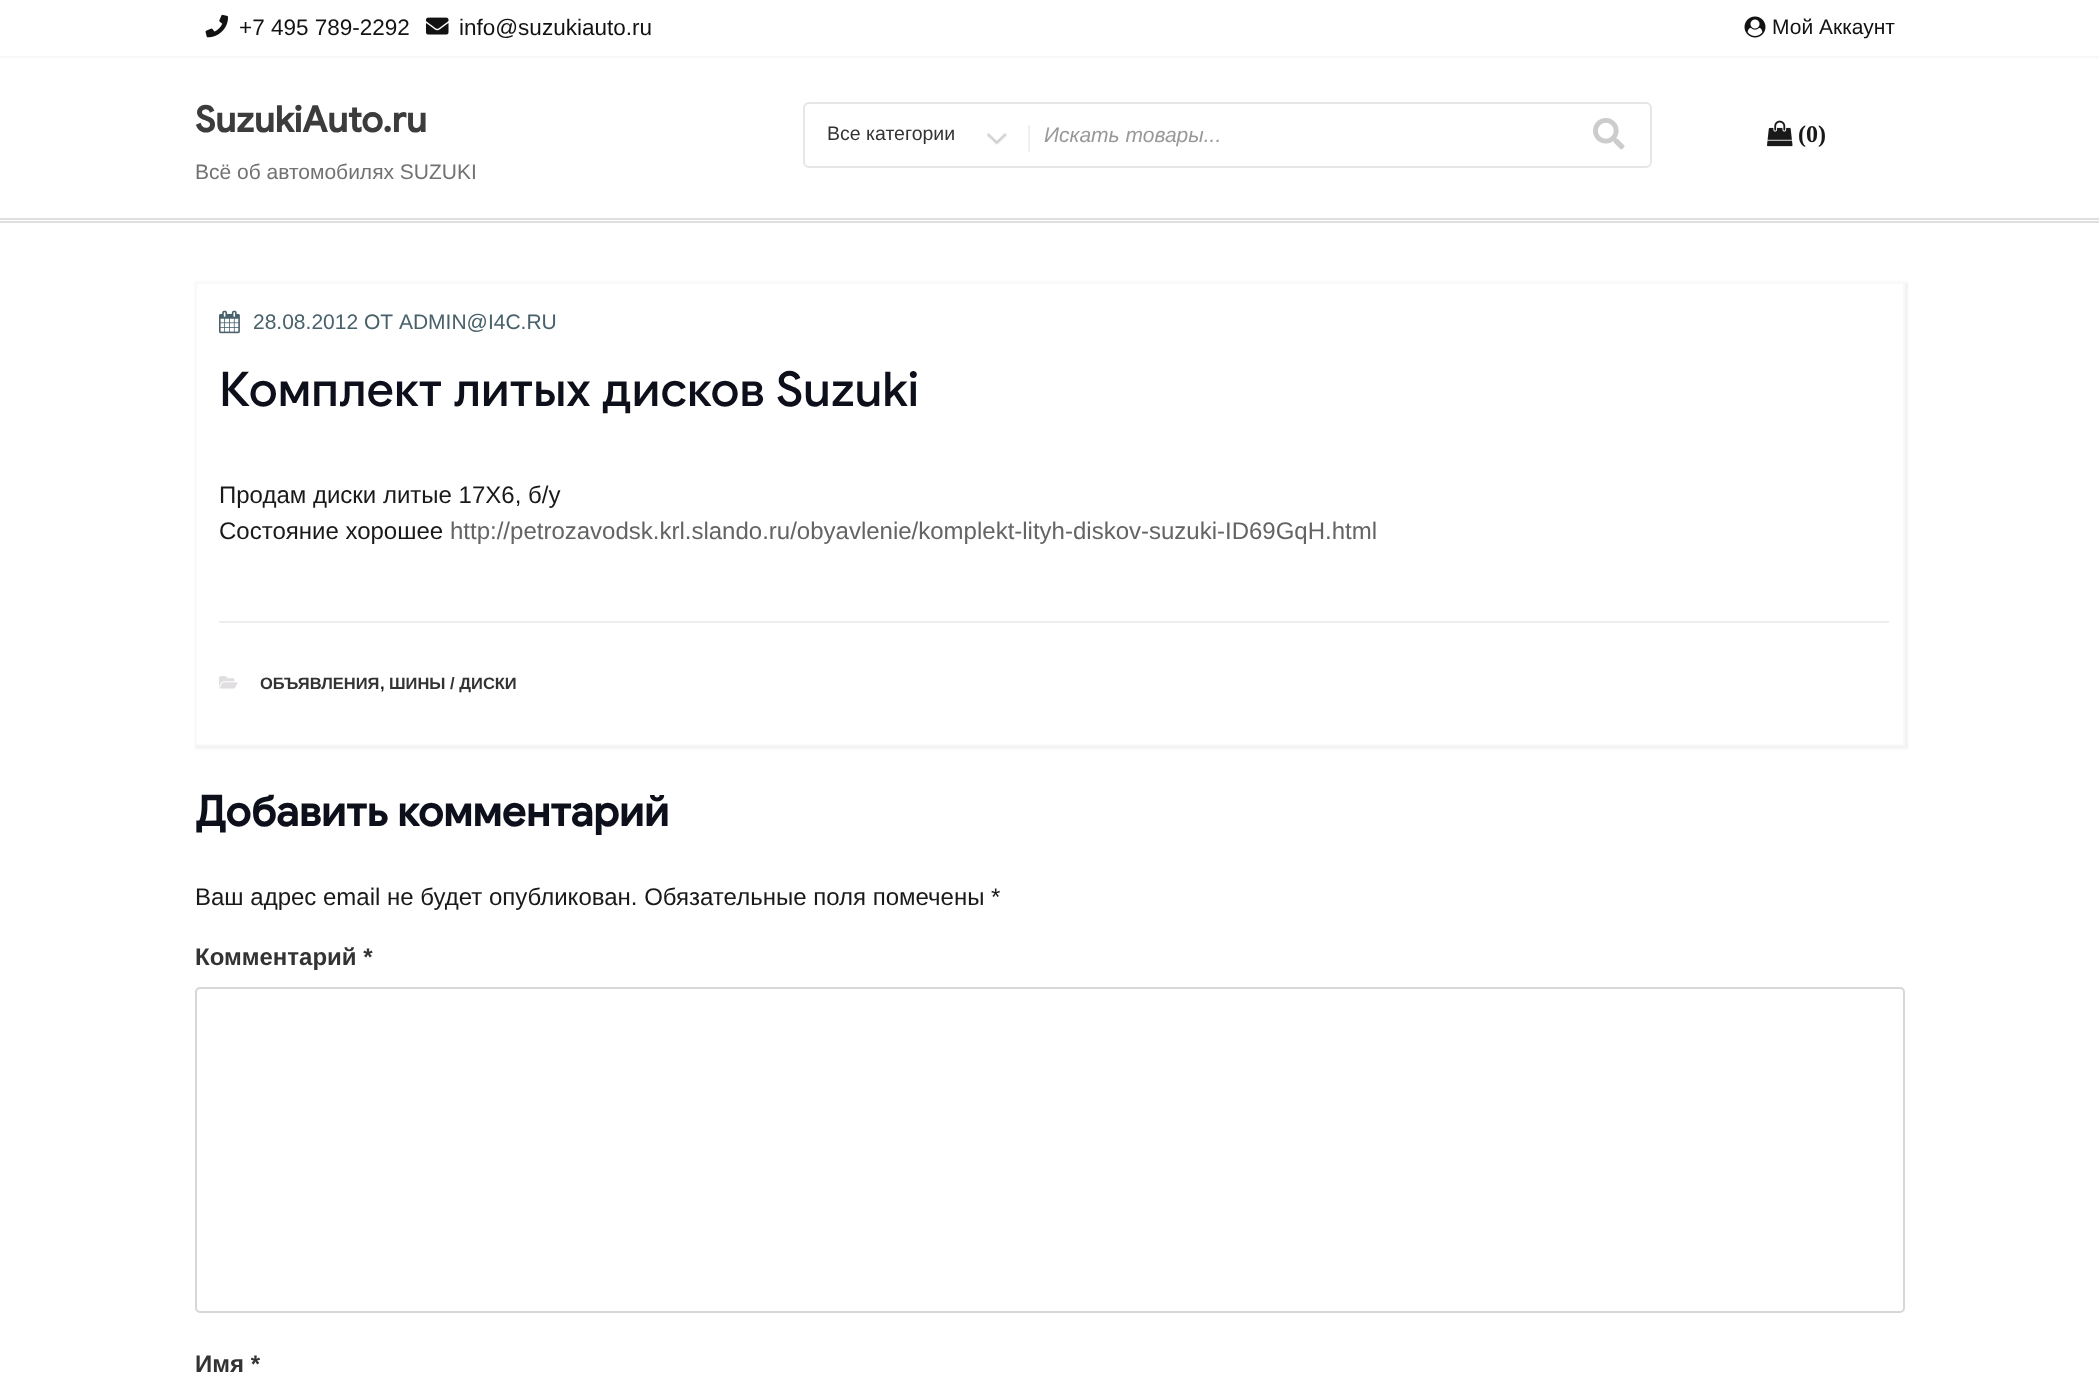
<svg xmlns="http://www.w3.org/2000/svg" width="2099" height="1381">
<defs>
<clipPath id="clip1"><path d="M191 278h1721v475h-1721zm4 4h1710v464h-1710z" clip-rule="evenodd"/></clipPath>
</defs>
<rect width="100%" height="100%" fill="#fff"/>
<rect y="56" width="2099" height="2" fill="#f7f7f7"/>
<image x="205" y="14" width="23" height="24" href="media/1.png"/>
<text x="239" y="35" style="font-family:Liberation Sans;font-size:22.5px;fill:#121212">+7 495 789-2292</text>
<image x="426" y="17" width="23" height="18" href="media/2.png"/>
<text x="459" y="35" style="font-family:Liberation Sans;font-size:22.5px;fill:#121212">info@suzukiauto.ru</text>
<image x="1744" y="16" width="22" height="22" href="media/3.png"/>
<text x="1772" y="34" style="font-family:Liberation Sans;font-size:21px;fill:#121212">Мой Аккаунт</text>
<text x="195" y="132" style="font-family:Google Sans;font-size:36px;font-weight:bold;fill:#3c3c3c">SuzukiAuto.ru</text>
<text x="195" y="179" style="font-family:Liberation Sans;font-size:21px;fill:#727272">Всё об автомобилях SUZUKI</text>
<rect x="804" y="103" width="847" height="64" rx="5" fill="none" stroke="#e6e6e6" stroke-width="2"/>
<image x="987" y="133" width="20" height="12" href="media/4.png"/>
<text x="827" y="140" style="font-family:Liberation Sans;font-size:19.5px;fill:#333">Все категории</text>
<rect x="1028" y="125" width="2" height="27" fill="#f0f0f0"/>
<text x="1044" y="142" style="font-family:Liberation Sans;font-size:21px;font-style:italic;fill:#999">Искать товары...</text>
<image x="1593" y="118" width="32" height="32" href="media/5.png"/>
<image x="1767" y="120" width="26" height="27" href="media/6.png"/>
<text x="1798" y="142" style="font-family:Liberation Serif;font-size:24px;font-weight:bold;fill:#191919">(0)</text>
<rect y="218" width="2099" height="2" fill="#dfdfdf"/>
<rect y="221" width="2099" height="2" fill="#dfdfdf"/>
<g clip-path="url(#clip1)">
<rect x="195" y="282" width="1713" height="467" fill="#f2f2f2" filter="blur(1px)"/>
</g>
<rect x="196" y="283" width="1708" height="462" fill="none" stroke="#f9f9f9" stroke-width="2"/>
<image x="219" y="310" width="21" height="24" href="media/7.png"/>
<text x="253" y="329" style="font-family:Liberation Sans;font-size:21px;fill:#49616b">28.08.2012 ОТ ADMIN@I4C.RU</text>
<text x="219" y="406" style="font-family:Google Sans;font-size:48px;font-weight:500;fill:#0d0f1a">Комплект литых дисков Suzuki</text>
<text x="219" y="503" style="font-family:Liberation Sans;font-size:24px;fill:#191919">Продам диски литые 17Х6, б/у</text>
<text x="219" y="539" style="font-family:Liberation Sans;font-size:24px;fill:#191919">Состояние хорошее</text>
<text x="450" y="539" style="font-family:Liberation Sans;font-size:24px;fill:#656464">http://petrozavodsk.krl.slando.ru/obyavlenie/komplekt-lityh-diskov-suzuki-ID69GqH.html</text>
<rect x="219" y="621" width="1670" height="2" fill="#eee"/>
<image x="219" y="676" width="19" height="13" href="media/8.png"/>
<text x="260" y="689" style="font-family:Liberation Sans;font-size:16.5px;font-weight:bold;fill:#333">ОБЪЯВЛЕНИЯ</text>
<text x="380" y="689" style="font-family:Liberation Sans;font-size:16.5px;font-weight:bold;fill:#191919">,</text>
<text x="389" y="689" style="font-family:Liberation Sans;font-size:16.5px;font-weight:bold;fill:#333">ШИНЫ / ДИСКИ</text>
<text x="195" y="826" style="font-family:Google Sans;font-size:42px;font-weight:bold;fill:#0d0f1a">Добавить комментарий</text>
<text x="195" y="905" style="font-family:Liberation Sans;font-size:24px;fill:#191919">Ваш адрес email не будет опубликован. Обязательные поля помечены *</text>
<text x="195" y="965" style="font-family:Liberation Sans;font-size:24px;font-weight:bold;fill:#333">Комментарий *</text>
<rect x="196" y="988" width="1708" height="324" rx="4" fill="none" stroke="#d7d7d7" stroke-width="2"/>
<text x="195" y="1372" style="font-family:Liberation Sans;font-size:24px;font-weight:bold;fill:#333">Имя *</text>
</svg>
